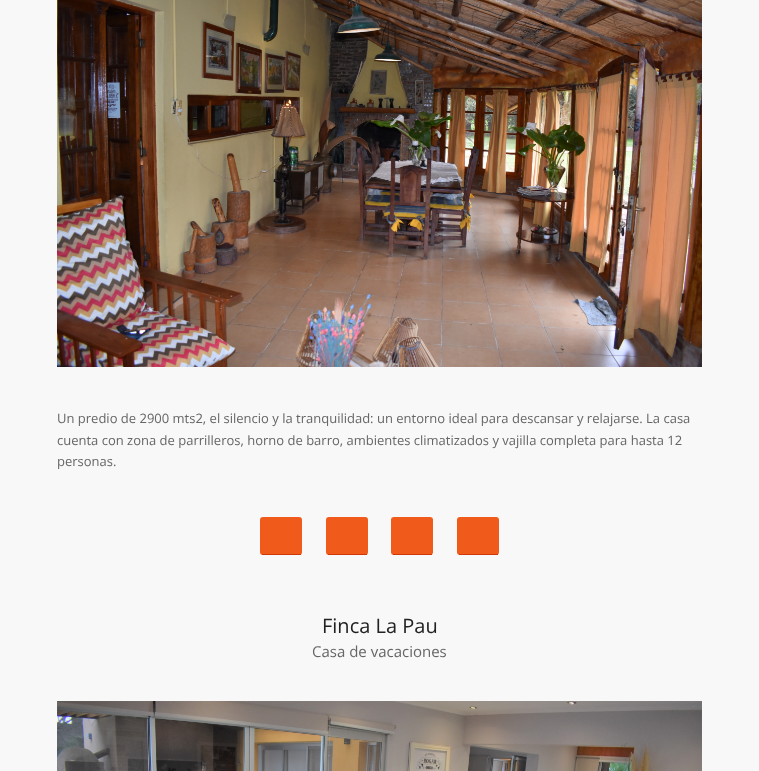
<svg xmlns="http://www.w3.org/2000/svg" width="759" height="771">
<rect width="100%" height="100%" fill="#f8f8f8"/>
<image x="57" y="0" width="645" height="367" href="media/1.png"/>
<text x="57" y="423" style="font-family:Open Sans;font-size:13px;fill:#666">Un predio de 2900 mts2, el silencio y la tranquilidad: un entorno ideal para descansar y relajarse. La casa</text>
<text x="57" y="445" style="font-family:Open Sans;font-size:13px;fill:#666">cuenta con zona de parrilleros, horno de barro, ambientes climatizados y vajilla completa para hasta 12</text>
<text x="57" y="466" style="font-family:Open Sans;font-size:13px;fill:#666">personas.</text>
<rect x="260" y="517" width="42" height="38" rx="3" fill="#f05a1a"/>
<rect x="262" y="554" width="39" height="1" fill="#d03808"/>
<rect x="326" y="517" width="42" height="38" rx="3" fill="#f05a1a"/>
<rect x="328" y="554" width="39" height="1" fill="#d03808"/>
<rect x="391" y="517" width="42" height="38" rx="3" fill="#f05a1a"/>
<rect x="393" y="554" width="39" height="1" fill="#d03808"/>
<rect x="457" y="517" width="42" height="38" rx="3" fill="#f05a1a"/>
<rect x="459" y="554" width="39" height="1" fill="#d03808"/>
<text x="322" y="633" style="font-family:Open Sans;font-size:20px;fill:#222">Finca La Pau</text>
<text x="312" y="657" style="font-family:Open Sans;font-size:15px;fill:#666">Casa de vacaciones</text>
<image x="57" y="701" width="645" height="70" href="media/2.png"/>
</svg>
